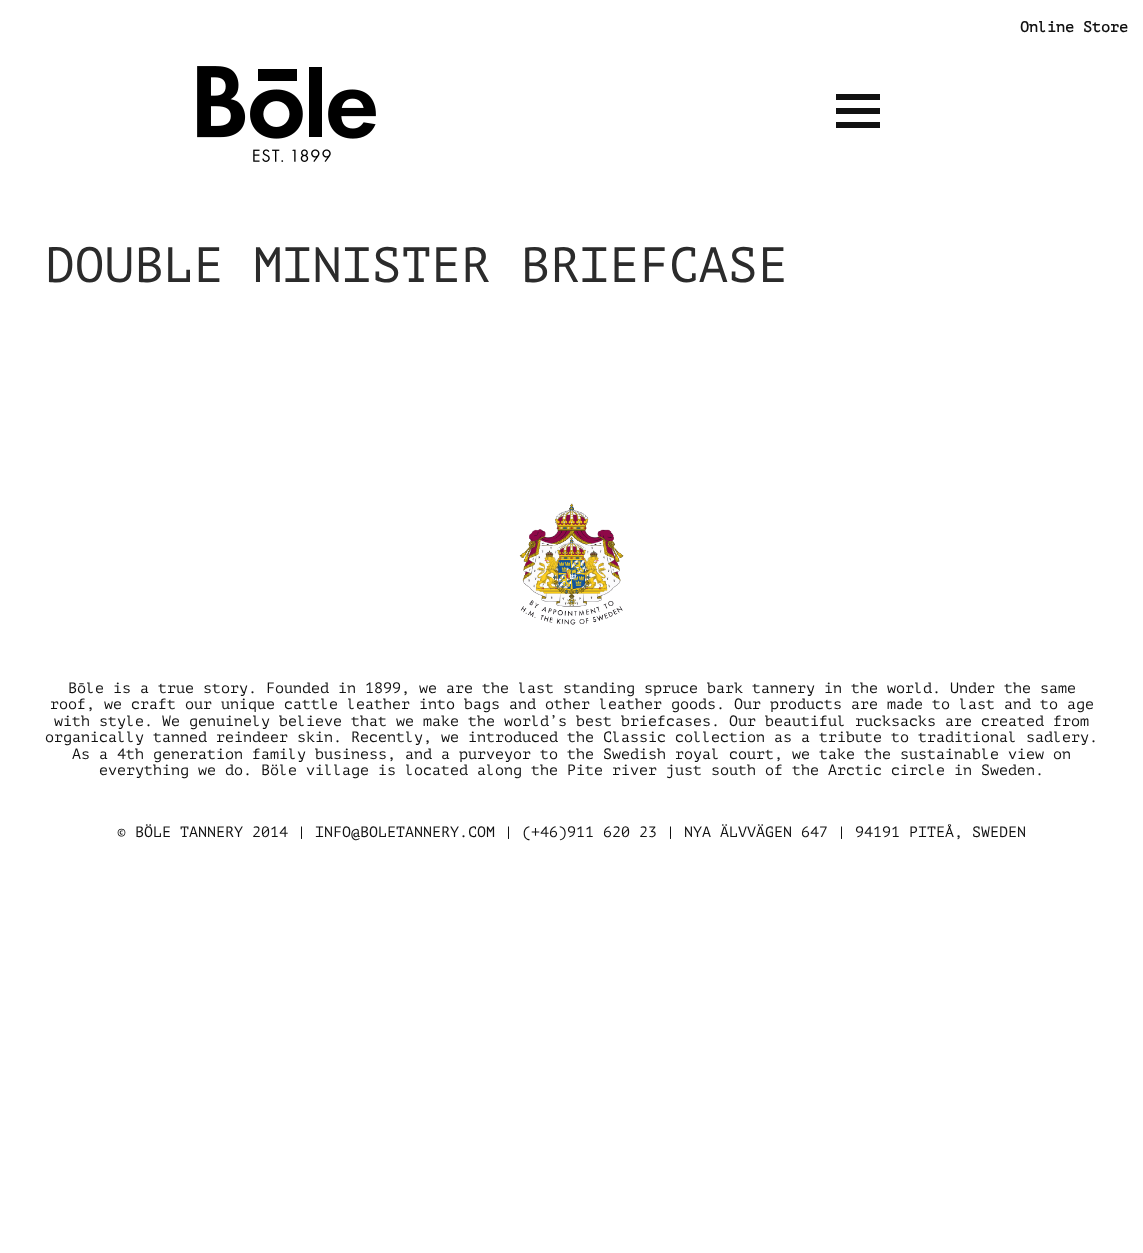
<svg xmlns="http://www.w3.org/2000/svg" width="1143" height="1253">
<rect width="100%" height="100%" fill="#fff"/>
<text x="1020" y="32" style="font-family:PT Mono;font-size:15px;font-weight:bold;fill:#111">Online Store</text>
<image x="197" y="66" width="179" height="96" href="media/1.png"/>
<path d="M880 94v6h-44v-6zm-44 14h44v6h-44zm0 14h44v6h-44z" fill="#111"/>
<text x="45" y="282" style="font-family:PT Mono;font-size:49.5px;fill:#2b2b2b">DOUBLE MINISTER BRIEFCASE</text>
<image x="519" y="503" width="105" height="122" href="media/2.png"/>
<text x="68" y="693" style="font-family:PT Mono;font-size:15px;fill:#111">Bōle is a true story. Founded in 1899, we are the last standing spruce bark tannery in the world. Under the same</text>
<text x="50" y="709" style="font-family:PT Mono;font-size:15px;fill:#111">roof, we craft our unique cattle leather into bags and other leather goods. Our products are made to last and to age</text>
<text x="54" y="726" style="font-family:PT Mono;font-size:15px;fill:#111">with style. We genuinely believe that we make the world’s best briefcases. Our beautiful rucksacks are created from</text>
<text x="45" y="742" style="font-family:PT Mono;font-size:15px;fill:#111">organically tanned reindeer skin. Recently, we introduced the Classic collection as a tribute to traditional sadlery.</text>
<text x="72" y="759" style="font-family:PT Mono;font-size:15px;fill:#111">As a 4th generation family business, and a purveyor to the Swedish royal court, we take the sustainable view on</text>
<text x="99" y="775" style="font-family:PT Mono;font-size:15px;fill:#111">everything we do. Böle village is located along the Pite river just south of the Arctic circle in Sweden.</text>
<text x="117" y="837" style="font-family:PT Mono;font-size:15px;fill:#111">© BÖLE TANNERY 2014 | INFO@BOLETANNERY.COM | (+46)911 620 23 | NYA ÄLVVÄGEN 647 | 94191 PITEÅ, SWEDEN</text>
</svg>
